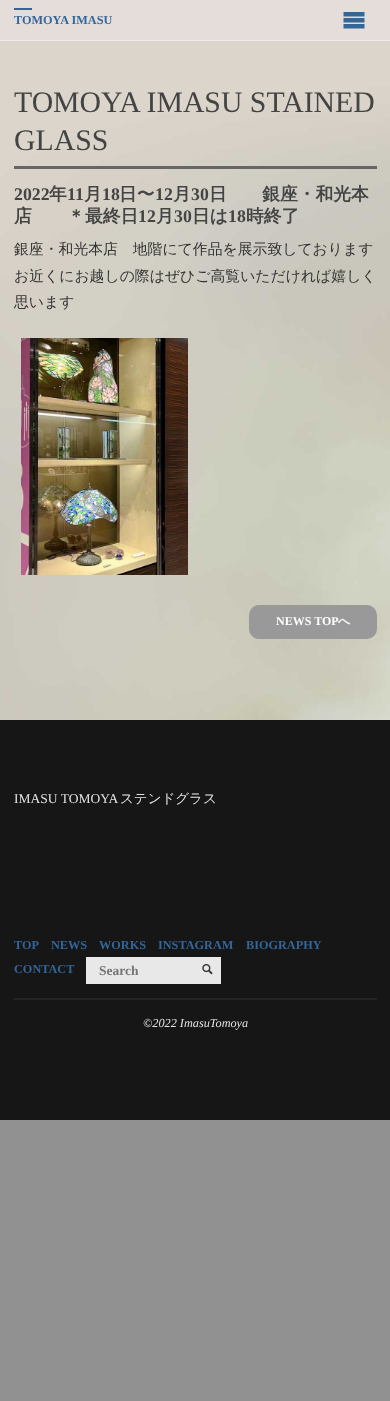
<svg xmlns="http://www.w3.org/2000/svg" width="390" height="1401">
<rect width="100%" height="100%" fill="#919191"/>
<rect width="390" height="40" fill="#e4ddda"/>
<rect x="14" y="8" width="18" height="2" fill="#369"/>
<text x="14" y="24" style="font-family:Liberation Serif;font-size:12.25px;font-weight:bold;fill:#369">TOMOYA IMASU</text>
<image x="343" y="12" width="22" height="17" href="media/1.png"/>
<rect y="40" width="390" height="1" fill="#eeecee"/>
<image x="0" y="41" width="390" height="679" href="media/2.png"/>
<text x="14" y="112" style="font-family:Liberation Serif;font-size:29.75px;fill:#444">TOMOYA IMASU STAINED</text>
<text x="14" y="150" style="font-family:Liberation Serif;font-size:29.75px;fill:#444">GLASS</text>
<rect x="14" y="166" width="363" height="3" fill="#666"/>
<text x="14" y="200" style="font-family:Liberation Serif;font-size:17.75px;font-weight:bold;fill:#444">2022</text>
<text x="49" y="200" style="font-family:WenQuanYi Zen Hei;font-size:17.75px;font-weight:bold;fill:#444">年</text>
<text x="67" y="200" style="font-family:Liberation Serif;font-size:17.75px;font-weight:bold;fill:#444">11</text>
<text x="84" y="200" style="font-family:WenQuanYi Zen Hei;font-size:17.75px;font-weight:bold;fill:#444">月</text>
<text x="102" y="200" style="font-family:Liberation Serif;font-size:17.75px;font-weight:bold;fill:#444">18</text>
<text x="119" y="200" style="font-family:WenQuanYi Zen Hei;font-size:17.75px;font-weight:bold;fill:#444">日〜</text>
<text x="155" y="200" style="font-family:Liberation Serif;font-size:17.75px;font-weight:bold;fill:#444">12</text>
<text x="173" y="200" style="font-family:WenQuanYi Zen Hei;font-size:17.75px;font-weight:bold;fill:#444">月</text>
<text x="191" y="200" style="font-family:Liberation Serif;font-size:17.75px;font-weight:bold;fill:#444">30</text>
<text x="209" y="200" style="font-family:WenQuanYi Zen Hei;font-size:17.75px;font-weight:bold;fill:#444">日　　銀座・和光本</text>
<text x="14" y="222" style="font-family:WenQuanYi Zen Hei;font-size:17.75px;font-weight:bold;fill:#444">店　　＊最終日</text>
<text x="138" y="222" style="font-family:Liberation Serif;font-size:17.75px;font-weight:bold;fill:#444">12</text>
<text x="156" y="222" style="font-family:WenQuanYi Zen Hei;font-size:17.75px;font-weight:bold;fill:#444">月</text>
<text x="174" y="222" style="font-family:Liberation Serif;font-size:17.75px;font-weight:bold;fill:#444">30</text>
<text x="192" y="222" style="font-family:WenQuanYi Zen Hei;font-size:17.75px;font-weight:bold;fill:#444">日は</text>
<text x="228" y="222" style="font-family:Liberation Serif;font-size:17.75px;font-weight:bold;fill:#444">18</text>
<text x="246" y="222" style="font-family:WenQuanYi Zen Hei;font-size:17.75px;font-weight:bold;fill:#444">時終了</text>
<text x="14" y="254" style="font-family:WenQuanYi Zen Hei;font-size:14.85px;font-weight:500;fill:#333">銀座・和光本店　地階にて作品を展示致しております</text>
<text x="14" y="281" style="font-family:WenQuanYi Zen Hei;font-size:14.85px;font-weight:500;fill:#333">お近くにお越しの際はぜひご高覧いただければ嬉しく</text>
<text x="14" y="307" style="font-family:WenQuanYi Zen Hei;font-size:14.85px;font-weight:500;fill:#333">思います</text>
<image x="21" y="338" width="167" height="237" href="media/3.png"/>
<rect x="249" y="605" width="128" height="34" rx="10" fill="#999"/>
<text x="276" y="625" style="font-family:Liberation Serif;font-size:12px;font-weight:bold;fill:#fff">NEWS TOP</text>
<text x="338" y="625" style="font-family:WenQuanYi Zen Hei;font-size:12px;font-weight:bold;fill:#fff">へ</text>
<rect y="720" width="390" height="400" fill="#161616"/>
<text x="14" y="803" style="font-family:Liberation Serif;font-size:13.5px;fill:#e2e2e2">IMASU TOMOYA</text>
<text x="120" y="803" style="font-family:WenQuanYi Zen Hei;font-size:13.5px;font-weight:500;fill:#e2e2e2">ステンドグラス</text>
<text x="14" y="949" style="font-family:Liberation Serif;font-size:12.25px;font-weight:bold;fill:#369">TOP</text>
<text x="51" y="949" style="font-family:Liberation Serif;font-size:12.25px;font-weight:bold;fill:#369">NEWS</text>
<text x="99" y="949" style="font-family:Liberation Serif;font-size:12.25px;font-weight:bold;fill:#369">WORKS</text>
<text x="158" y="949" style="font-family:Liberation Serif;font-size:12.25px;font-weight:bold;fill:#369">INSTAGRAM</text>
<text x="246" y="949" style="font-family:Liberation Serif;font-size:12.25px;font-weight:bold;fill:#369">BIOGRAPHY</text>
<text x="14" y="973" style="font-family:Liberation Serif;font-size:12.25px;font-weight:bold;fill:#369">CONTACT</text>
<rect x="86" y="957" width="135" height="27" fill="#e8e8e8"/>
<text x="99" y="975" style="font-family:Liberation Serif;font-size:13.5px;font-weight:bold;fill:#757575">Search</text>
<image x="202" y="964" width="11" height="11" href="media/4.png"/>
<rect x="14" y="998" width="363" height="2" fill="#252525"/>
<text x="143" y="1027" style="font-family:Liberation Serif;font-size:12.25px;font-style:italic;fill:#e2e2e2">©2022 ImasuTomoya</text>
</svg>
